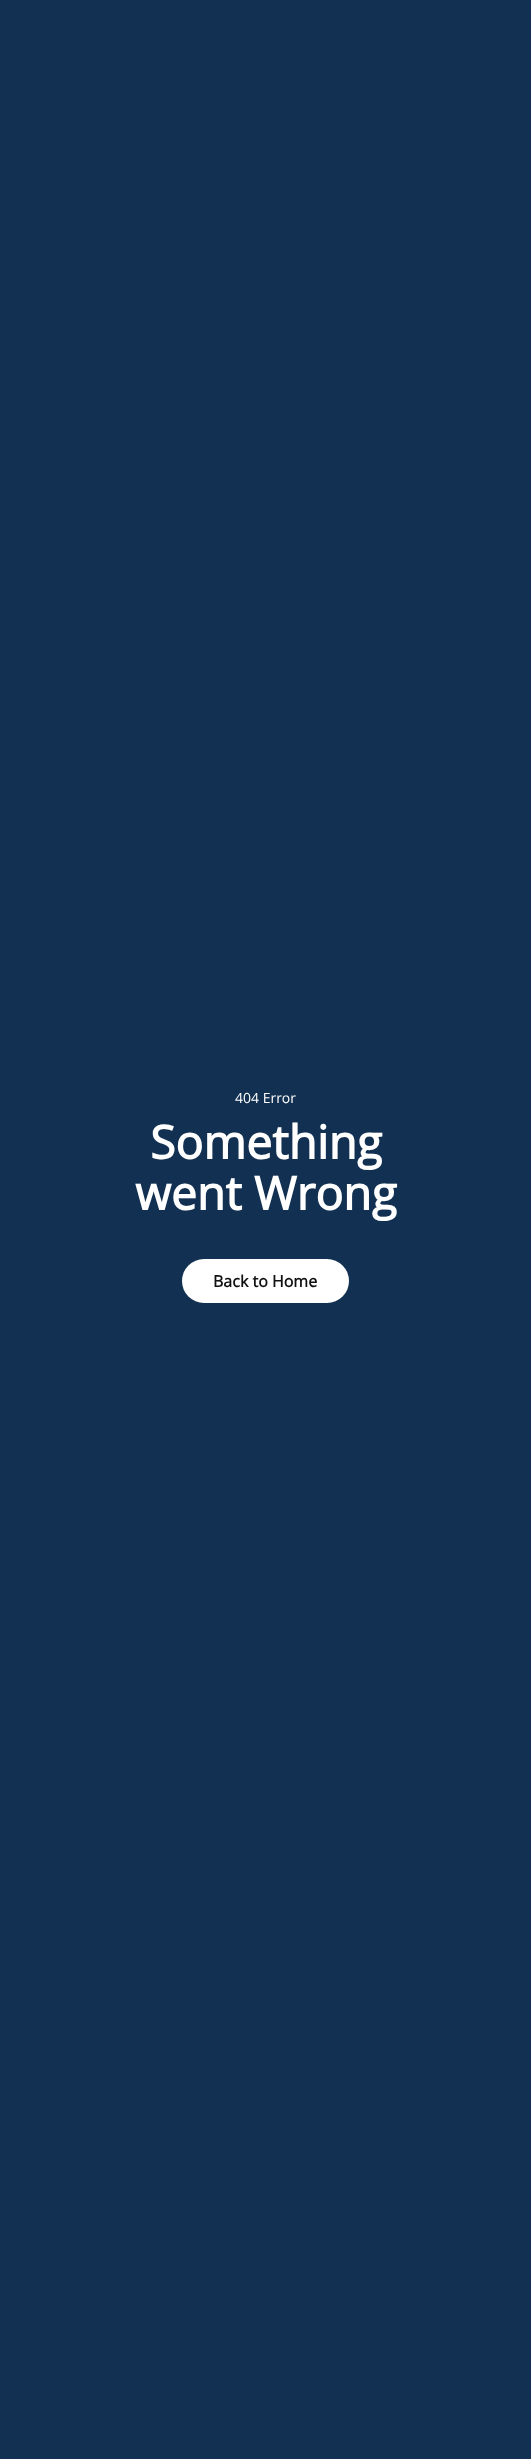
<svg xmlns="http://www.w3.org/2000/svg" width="531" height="2459">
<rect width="100%" height="100%" fill="#123051"/>
<text x="235" y="1103" style="font-family:Open Sans;font-size:14px;fill:#fff">404 Error</text>
<text x="150" y="1159" style="font-family:Open Sans;font-size:46.25px;font-weight:bold;fill:#fff">Something</text>
<text x="135" y="1210" style="font-family:Open Sans;font-size:46.25px;font-weight:bold;fill:#fff">went Wrong</text>
<rect x="182" y="1259" width="167" height="44" rx="22" fill="#fff"/>
<text x="213" y="1287" style="font-family:Open Sans;font-size:16px;font-weight:bold;fill:#111">Back to Home</text>
</svg>
